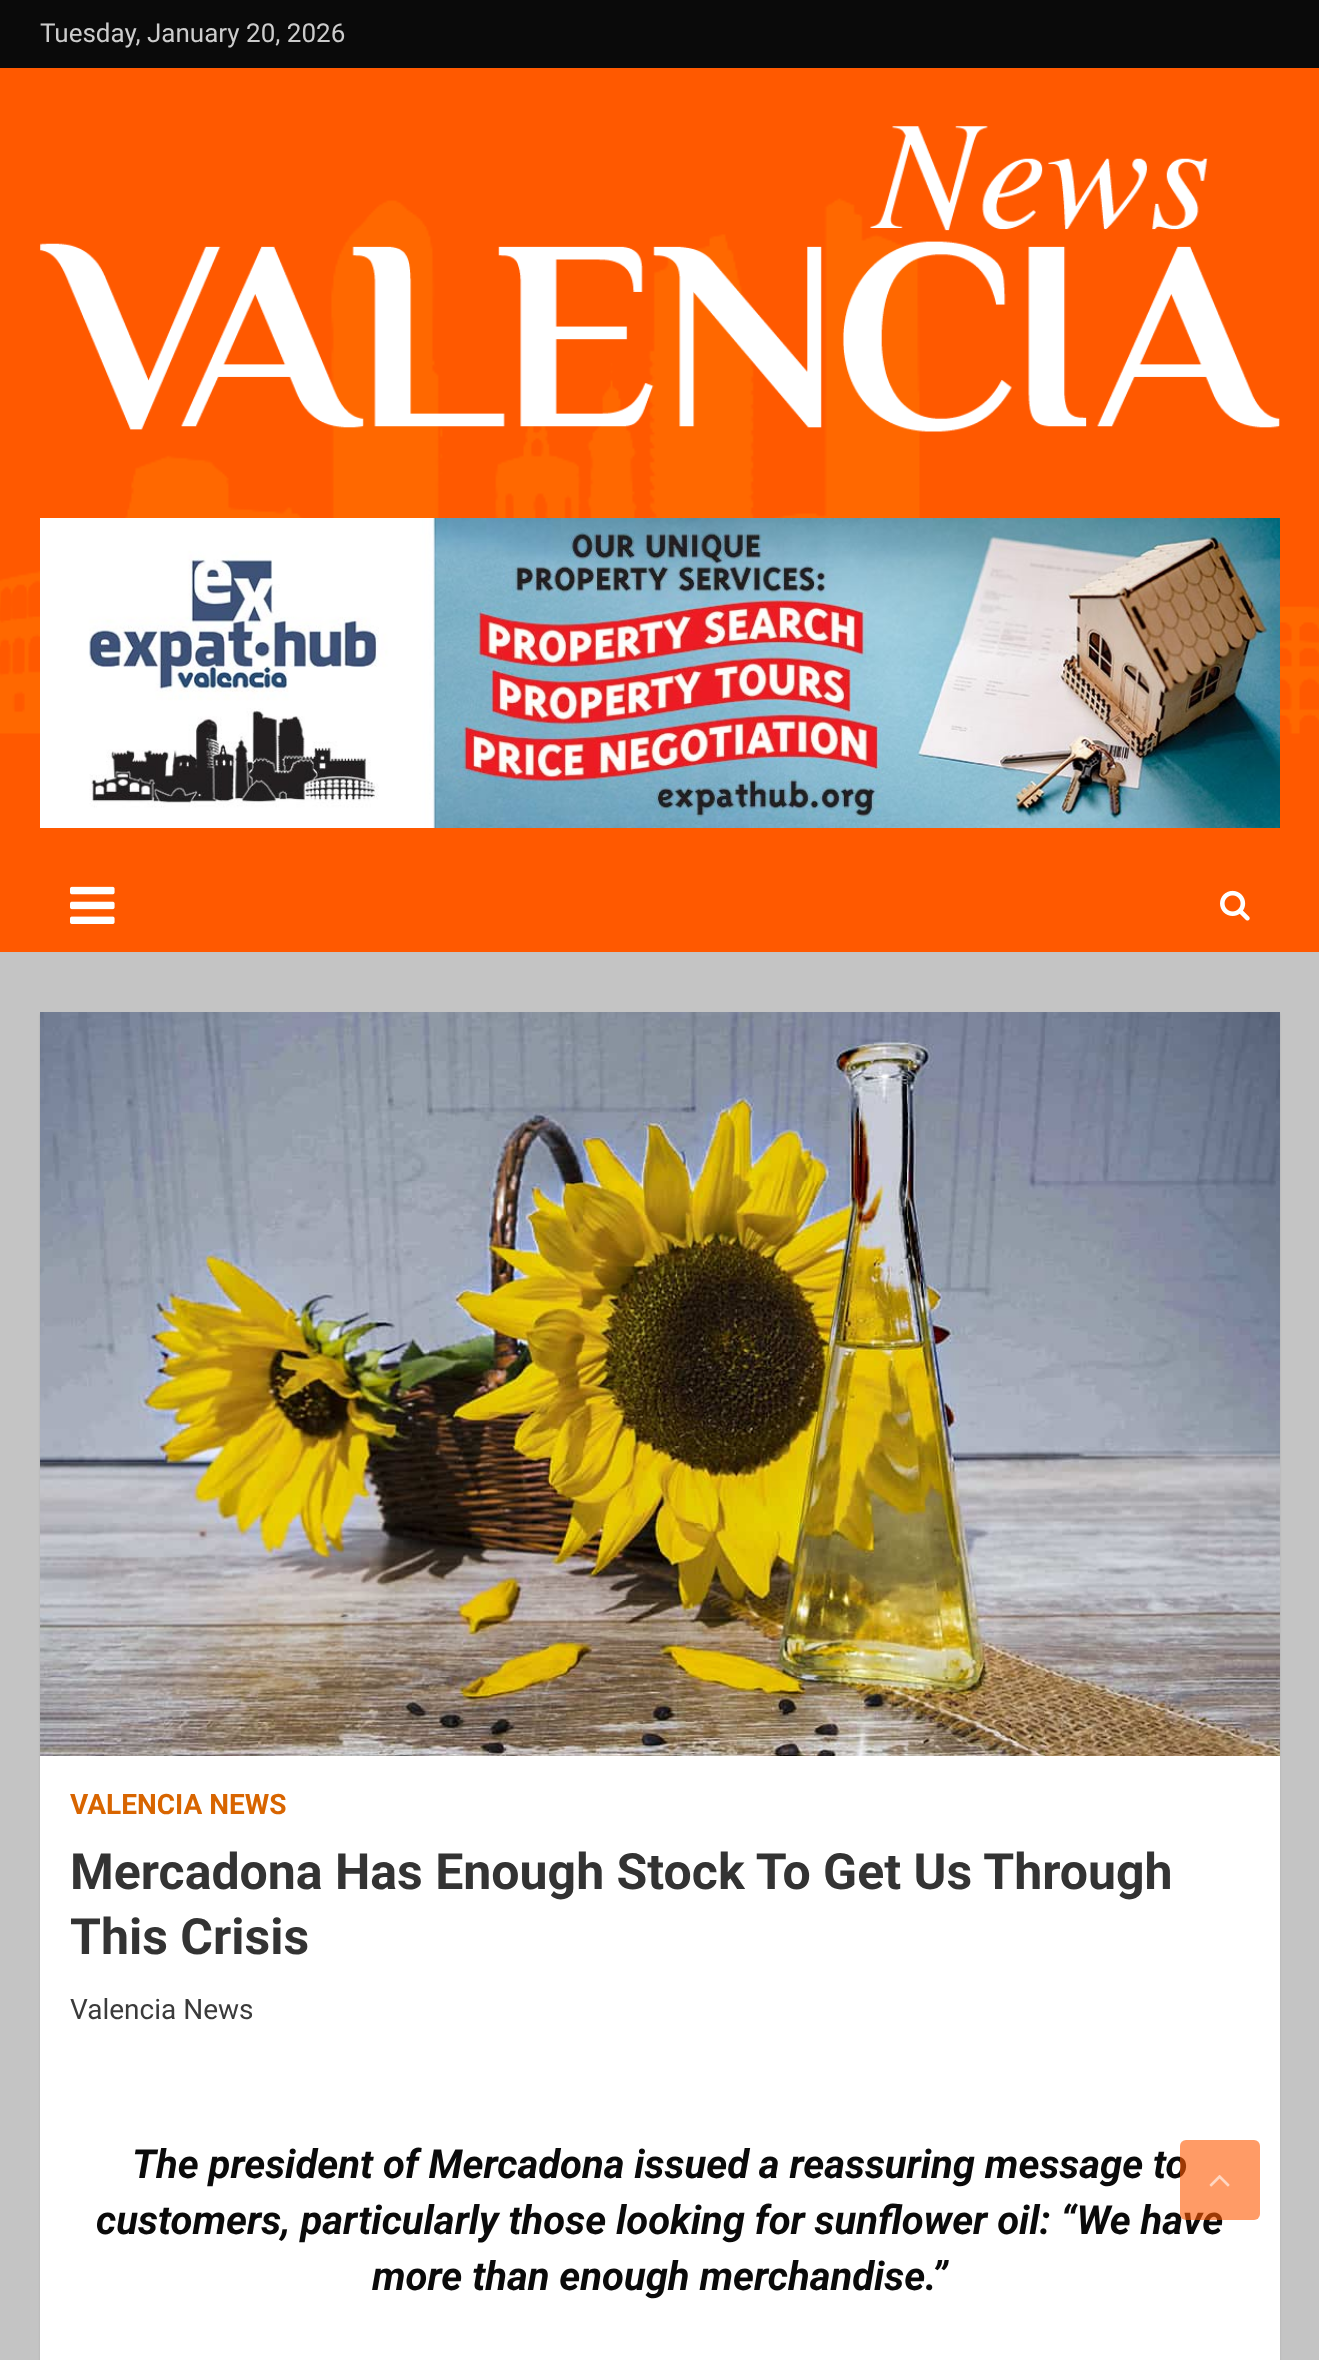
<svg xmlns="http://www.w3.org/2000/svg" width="1319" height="2360">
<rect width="100%" height="100%" fill="#c4c4c4"/>
<rect width="1319" height="68" fill="#0a0a0a"/>
<text x="40" y="42" style="font-family:Roboto;font-size:26px;fill:#ccc">Tuesday, January 20, 2026</text>
<image x="0" y="68" width="1319" height="792" href="media/1.png"/>
<image x="40" y="126" width="1240" height="306" href="media/2.png"/>
<image x="40" y="518" width="1240" height="310" href="media/3.png"/>
<rect y="860" width="1319" height="92" fill="#ff5900"/>
<image x="70" y="886" width="45" height="38" href="media/4.png"/>
<image x="1220" y="890" width="30" height="31" href="media/5.png"/>
<rect x="40" y="1014" width="1240" height="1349" fill="#0000001a" filter="blur(1px)"/>
<rect x="40" y="1756" width="1240" height="604" fill="#fff"/>
<image x="40" y="1012" width="1240" height="744" href="media/6.png"/>
<text x="70" y="1814" style="font-family:Roboto;font-size:28px;font-weight:bold;fill:#d86500">VALENCIA NEWS</text>
<text x="70" y="1889" style="font-family:Roboto;font-size:50px;font-weight:bold;fill:#333">Mercadona Has Enough Stock To Get Us Through</text>
<text x="70" y="1954" style="font-family:Roboto;font-size:50px;font-weight:bold;fill:#333">This Crisis</text>
<text x="70" y="2019" style="font-family:Roboto;font-size:28px;fill:#3b3b3b">Valencia News</text>
<text x="132" y="2178" style="font-family:Roboto;font-size:40px;font-weight:bold;font-style:italic;fill:#0a0a0a">The president of Mercadona issued a reassuring message to</text>
<text x="96" y="2234" style="font-family:Roboto;font-size:40px;font-weight:bold;font-style:italic;fill:#0a0a0a">customers, particularly those looking for sunflower oil: “We have</text>
<text x="372" y="2290" style="font-family:Roboto;font-size:40px;font-weight:bold;font-style:italic;fill:#0a0a0a">more than enough merchandise.”</text>
<rect x="1180" y="2140" width="80" height="80" rx="6" fill="#ff590099"/>
<image x="1209" y="2175" width="21" height="12" href="media/7.png"/>
</svg>
